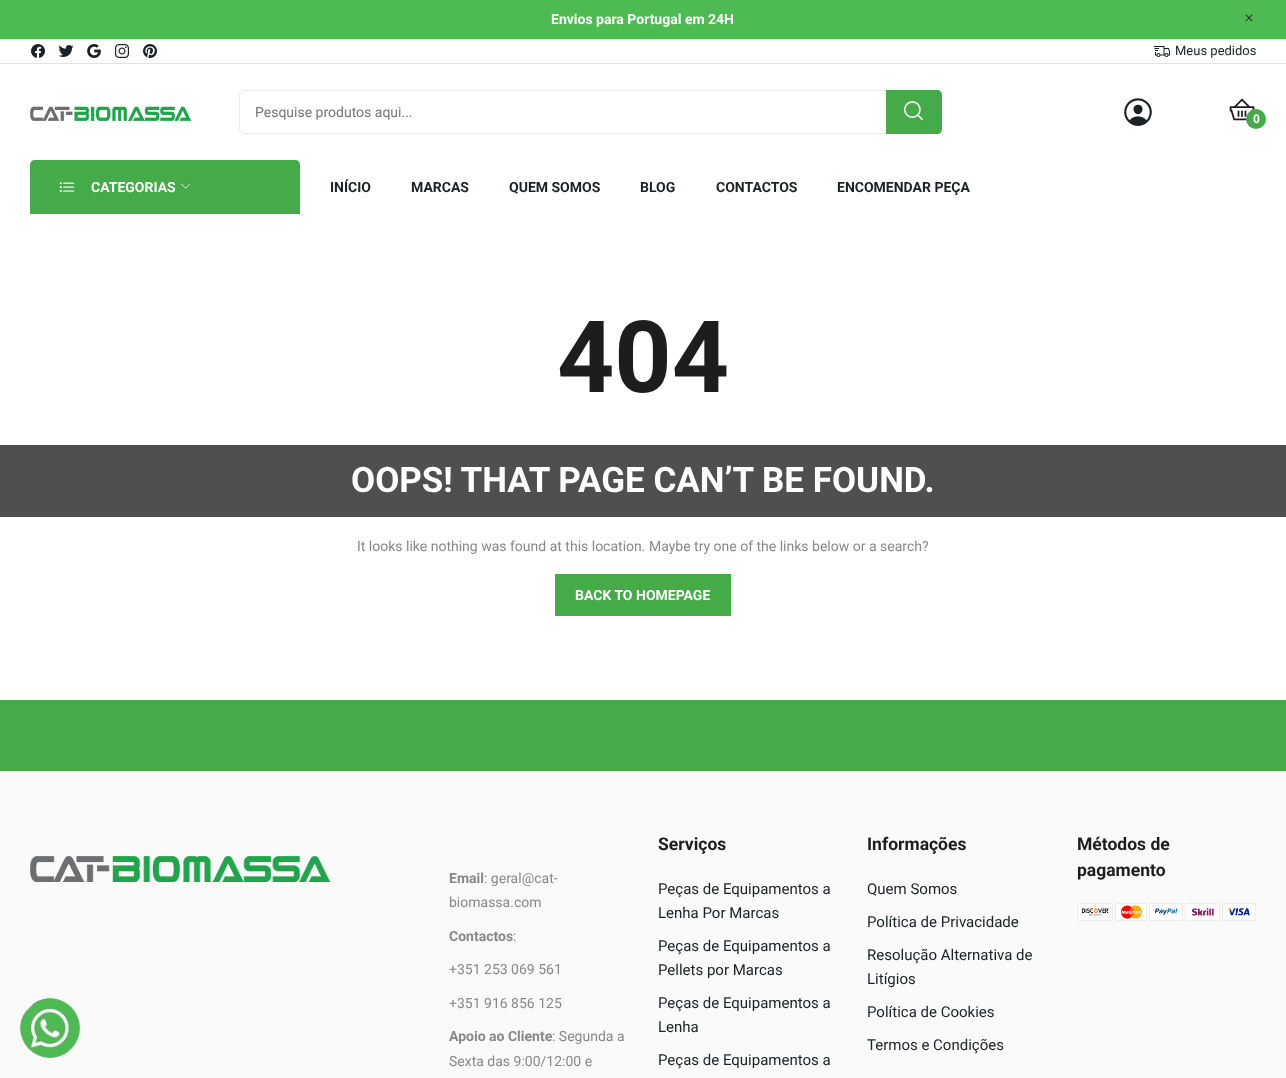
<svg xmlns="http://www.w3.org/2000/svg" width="1286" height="1078">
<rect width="100%" height="100%" fill="#fff"/>
<rect y="771" width="1286" height="307" fill="#fafafa"/>
<image x="20" y="998" width="60" height="60" href="media/1.png"/>
<rect width="1286" height="39" fill="#4dba52"/>
<rect y="39" width="1286" height="1" fill="#ebebeb"/>
<text x="551" y="24" style="font-family:Roboto;font-size:14px;font-weight:bold;fill:#fff">Envios para Portugal em 24H</text>
<image x="1245" y="14" width="8" height="8" href="media/2.png"/>
<rect y="63" width="1286" height="1" fill="#e2e2e2"/>
<image x="31" y="44" width="14" height="14" href="media/3.png"/>
<image x="58" y="45" width="16" height="12" href="media/4.png"/>
<image x="87" y="44" width="14" height="14" href="media/5.png"/>
<image x="115" y="44" width="14" height="14" href="media/6.png"/>
<image x="143" y="44" width="14" height="14" href="media/7.png"/>
<image x="1154" y="46" width="16" height="11" href="media/8.png"/>
<text x="1175" y="55" style="font-family:Roboto;font-size:13px;fill:#1a2225">Meus pedidos</text>
<image x="30" y="106" width="161" height="15" href="media/9.png"/>
<rect x="239.5" y="90.5" width="702" height="43" rx="4.5" fill="none" stroke="#ebebeb"/>
<text x="255" y="117" style="font-family:Roboto;font-size:14px;fill:#757575">Pesquise produtos aqui...</text>
<path d="M886 90h51c3 0 5 2 5 5v34c0 3-2 5-5 5h-51z" fill="#45ab49"/>
<image x="904" y="101" width="19" height="20" href="media/10.png"/>
<image x="1124" y="98" width="28" height="28" href="media/11.png"/>
<image x="1229" y="98" width="26" height="23" href="media/12.png"/>
<circle cx="1256" cy="119" r="10" fill="#45ab49"/>
<text x="1253" y="123" style="font-family:Roboto;font-size:12px;font-weight:bold;fill:#fff">0</text>
<path d="M35 160h260c3 0 5 2 5 5v49h-270v-49c0-3 2-5 5-5z" fill="#45ab49"/>
<image x="59" y="182" width="16" height="11" href="media/13.png"/>
<text x="91" y="192" style="font-family:Roboto;font-size:14px;font-weight:bold;fill:#fff">CATEGORIAS</text>
<image x="181" y="183" width="9" height="6" href="media/14.png"/>
<text x="330" y="192" style="font-family:Roboto;font-size:14px;font-weight:bold;fill:#1a2225">INÍCIO</text>
<text x="411" y="192" style="font-family:Roboto;font-size:14px;font-weight:bold;fill:#1a2225">MARCAS</text>
<text x="509" y="192" style="font-family:Roboto;font-size:14px;font-weight:bold;fill:#1a2225">QUEM SOMOS</text>
<text x="640" y="192" style="font-family:Roboto;font-size:14px;font-weight:bold;fill:#1a2225">BLOG</text>
<text x="716" y="192" style="font-family:Roboto;font-size:14px;font-weight:bold;fill:#1a2225">CONTACTOS</text>
<text x="837" y="192" style="font-family:Roboto;font-size:14px;font-weight:bold;fill:#1a2225">ENCOMENDAR PEÇA</text>
<text x="557" y="392" style="font-family:Roboto;font-size:100px;font-weight:bold;fill:#1d1d1d">404</text>
<rect y="445" width="1286" height="72" fill="#4f4f4f"/>
<text x="351" y="492" style="font-family:Roboto;font-size:35px;font-weight:bold;fill:#fff">OOPS! THAT PAGE CAN’T BE FOUND.</text>
<text x="357" y="551" style="font-family:Roboto;font-size:14px;fill:#888">It looks like nothing was found at this location. Maybe try one of the links below or a search?</text>
<rect x="555" y="574" width="176" height="42" fill="#45ab49"/>
<text x="575" y="600" style="font-family:Roboto;font-size:14px;font-weight:bold;fill:#fff">BACK TO HOMEPAGE</text>
<rect y="700" width="1286" height="71" fill="#45ab49"/>
<image x="30" y="856" width="300" height="26" href="media/15.png"/>
<text x="658" y="850" style="font-family:Roboto;font-size:17.5px;font-weight:bold;fill:#1d1d1d">Serviços</text>
<text x="658" y="894" style="font-family:Roboto;font-size:15px;fill:#1a2225">Peças de Equipamentos a</text>
<text x="658" y="918" style="font-family:Roboto;font-size:15px;fill:#1a2225">Lenha Por Marcas</text>
<text x="658" y="951" style="font-family:Roboto;font-size:15px;fill:#1a2225">Peças de Equipamentos a</text>
<text x="658" y="975" style="font-family:Roboto;font-size:15px;fill:#1a2225">Pellets por Marcas</text>
<text x="658" y="1008" style="font-family:Roboto;font-size:15px;fill:#1a2225">Peças de Equipamentos a</text>
<text x="658" y="1032" style="font-family:Roboto;font-size:15px;fill:#1a2225">Lenha</text>
<text x="658" y="1065" style="font-family:Roboto;font-size:15px;fill:#1a2225">Peças de Equipamentos a</text>
<text x="867" y="850" style="font-family:Roboto;font-size:17.5px;font-weight:bold;fill:#1d1d1d">Informações</text>
<text x="867" y="894" style="font-family:Roboto;font-size:15px;fill:#1a2225">Quem Somos</text>
<text x="867" y="927" style="font-family:Roboto;font-size:15px;fill:#1a2225">Política de Privacidade</text>
<text x="867" y="960" style="font-family:Roboto;font-size:15px;fill:#1a2225">Resolução Alternativa de</text>
<text x="867" y="984" style="font-family:Roboto;font-size:15px;fill:#1a2225">Litígios</text>
<text x="867" y="1017" style="font-family:Roboto;font-size:15px;fill:#1a2225">Política de Cookies</text>
<text x="867" y="1050" style="font-family:Roboto;font-size:15px;fill:#1a2225">Termos e Condições</text>
<text x="1077" y="850" style="font-family:Roboto;font-size:17.5px;font-weight:bold;fill:#1d1d1d">Métodos de</text>
<text x="1077" y="876" style="font-family:Roboto;font-size:17.5px;font-weight:bold;fill:#1d1d1d">pagamento</text>
<image x="1077" y="903" width="179" height="18" href="media/16.png"/>
<text x="449" y="883" style="font-family:Roboto;font-size:14px;font-weight:bold;fill:#888">Email</text>
<text x="484" y="883" style="font-family:Roboto;font-size:14px;fill:#888">: geral@cat-</text>
<text x="449" y="907" style="font-family:Roboto;font-size:14px;fill:#888">biomassa.com</text>
<text x="449" y="941" style="font-family:Roboto;font-size:14px;font-weight:bold;fill:#888">Contactos</text>
<text x="513" y="941" style="font-family:Roboto;font-size:14px;fill:#888">:</text>
<text x="449" y="974" style="font-family:Roboto;font-size:14px;fill:#888">+351 253 069 561</text>
<text x="449" y="1008" style="font-family:Roboto;font-size:14px;fill:#888">+351 916 856 125</text>
<text x="449" y="1041" style="font-family:Roboto;font-size:14px;font-weight:bold;fill:#888">Apoio ao Cliente</text>
<text x="552" y="1041" style="font-family:Roboto;font-size:14px;fill:#888">: Segunda a</text>
<text x="449" y="1066" style="font-family:Roboto;font-size:14px;fill:#888">Sexta das 9:00/12:00 e</text>
</svg>
